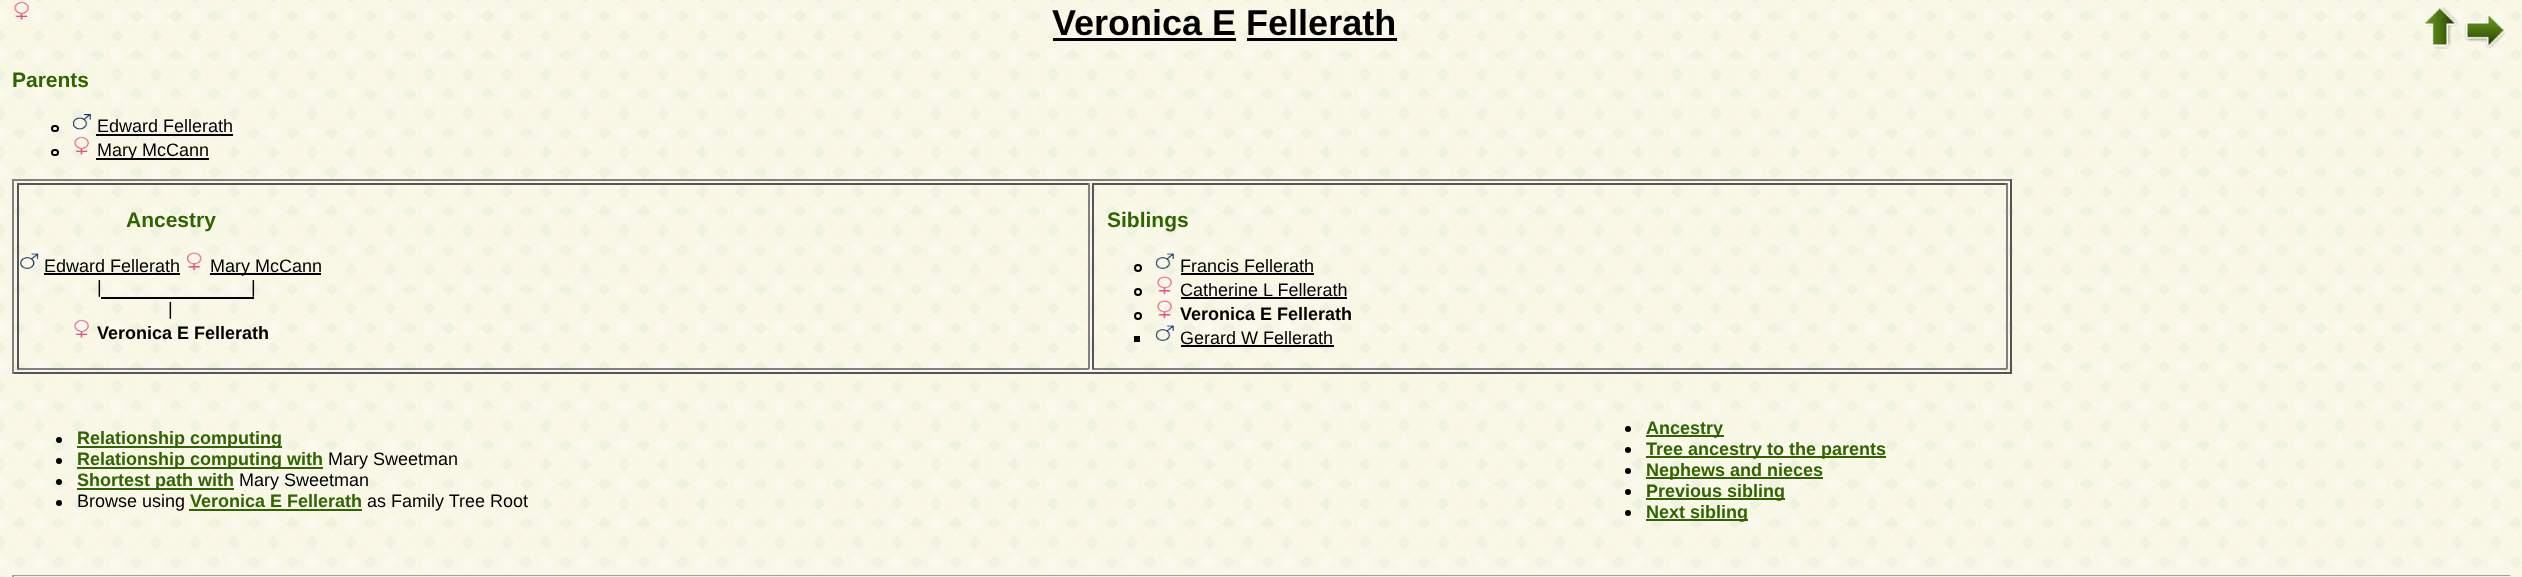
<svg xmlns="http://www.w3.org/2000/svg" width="2522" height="577">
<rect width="100%" height="100%" fill="#fff"/>
<image x="0" y="0" width="2522" height="577" href="media/1.png"/>
<image x="14" y="1" width="15" height="19" href="media/2.png"/>
<text x="1052" y="35" style="font-family:Liberation Sans;font-size:36px;font-weight:bold;fill:#000">Veronica E Fellerath</text>
<rect x="1053" y="38" width="183" height="3" fill="#000"/>
<rect x="1247" y="38" width="150" height="3" fill="#000"/>
<image x="2425" y="7" width="33" height="42" href="media/3.png"/>
<image x="2464" y="14" width="42" height="35" href="media/4.png"/>
<text x="12" y="87" style="font-family:Liberation Sans;font-size:21px;font-weight:bold;fill:#2f6400">Parents</text>
<rect x="52" y="126" width="6" height="5" rx="2.5" fill="none" stroke="#000" stroke-width="2"/>
<image x="72" y="114" width="19" height="16" href="media/5.png"/>
<text x="97" y="132" style="font-family:Liberation Sans;font-size:18px;fill:#000">Edward Fellerath</text>
<rect x="96" y="134" width="137" height="2" fill="#000"/>
<rect x="52" y="150" width="6" height="5" rx="2.5" fill="none" stroke="#000" stroke-width="2"/>
<image x="74" y="136" width="15" height="19" href="media/6.png"/>
<rect x="96" y="158" width="113" height="2" fill="#000"/>
<text x="97" y="156" style="font-family:Liberation Sans;font-size:18px;fill:#000">Mary McCann</text>
<rect x="12" y="179" width="2000" height="2" fill="#808080"/>
<rect x="2010" y="179" width="2" height="195" fill="#555"/>
<rect x="12" y="372" width="2000" height="2" fill="#555"/>
<rect x="12" y="179" width="2" height="195" fill="#808080"/>
<rect x="17" y="183" width="1072" height="2" fill="#555"/>
<rect x="1088" y="183" width="2" height="186" fill="#808080"/>
<rect x="17" y="368" width="1072" height="2" fill="#808080"/>
<rect x="17" y="183" width="2" height="186" fill="#555"/>
<text x="126" y="227" style="font-family:Liberation Sans;font-size:21px;font-weight:bold;fill:#2f6400">Ancestry</text>
<image x="20" y="253" width="19" height="16" href="media/7.png"/>
<text x="44" y="272" style="font-family:Liberation Sans;font-size:18px;fill:#000">Edward Fellerath</text>
<rect x="44" y="273" width="136" height="2" fill="#000"/>
<image x="187" y="252" width="15" height="19" href="media/8.png"/>
<rect x="210" y="273" width="111" height="2" fill="#000"/>
<text x="210" y="272" style="font-family:Liberation Sans;font-size:18px;fill:#000">Mary McCann</text>
<text x="97" y="293" style="font-family:Liberation Sans;font-size:18px;fill:#000">|</text>
<text x="251" y="293" style="font-family:Liberation Sans;font-size:18px;fill:#000">|</text>
<rect x="101" y="297" width="153" height="2" fill="#000"/>
<text x="168" y="315" style="font-family:Liberation Sans;font-size:18px;fill:#000">|</text>
<image x="74" y="319" width="15" height="19" href="media/9.png"/>
<text x="97" y="339" style="font-family:Liberation Sans;font-size:18px;font-weight:bold;fill:#000">Veronica E Fellerath</text>
<rect x="1092" y="183" width="915" height="2" fill="#555"/>
<rect x="2006" y="183" width="2" height="186" fill="#808080"/>
<rect x="1092" y="368" width="915" height="2" fill="#808080"/>
<rect x="1092" y="183" width="2" height="186" fill="#555"/>
<text x="1107" y="227" style="font-family:Liberation Sans;font-size:21px;font-weight:bold;fill:#2f6400">Siblings</text>
<circle cx="1138" cy="268" r="3" fill="none" stroke="#000" stroke-width="2"/>
<image x="1155" y="253" width="19" height="16" href="media/10.png"/>
<text x="1180" y="272" style="font-family:Liberation Sans;font-size:18px;fill:#000">Francis Fellerath</text>
<rect x="1181" y="273" width="133" height="2" fill="#000"/>
<circle cx="1138" cy="292" r="3" fill="none" stroke="#000" stroke-width="2"/>
<image x="1157" y="276" width="15" height="19" href="media/11.png"/>
<text x="1180" y="296" style="font-family:Liberation Sans;font-size:18px;fill:#000">Catherine L Fellerath</text>
<rect x="1181" y="297" width="166" height="2" fill="#000"/>
<circle cx="1138" cy="316" r="3" fill="none" stroke="#000" stroke-width="2"/>
<image x="1157" y="300" width="15" height="19" href="media/12.png"/>
<text x="1180" y="320" style="font-family:Liberation Sans;font-size:18px;font-weight:bold;fill:#000">Veronica E Fellerath</text>
<rect x="1134" y="336" width="6" height="6" fill="#000"/>
<image x="1155" y="325" width="19" height="16" href="media/13.png"/>
<text x="1180" y="344" style="font-family:Liberation Sans;font-size:18px;fill:#000">Gerard W Fellerath</text>
<rect x="1181" y="345" width="153" height="2" fill="#000"/>
<circle cx="59" cy="440" r="3" fill="#000"/>
<rect x="77" y="446" width="205" height="2" fill="#2f6400"/>
<text x="77" y="444" style="font-family:Liberation Sans;font-size:18px;font-weight:bold;fill:#2f6400">Relationship computing</text>
<circle cx="59" cy="461" r="3" fill="#000"/>
<rect x="77" y="467" width="246" height="2" fill="#2f6400"/>
<text x="77" y="465" style="font-family:Liberation Sans;font-size:18px;font-weight:bold;fill:#2f6400">Relationship computing with</text>
<text x="328" y="465" style="font-family:Liberation Sans;font-size:18px;fill:#000">Mary Sweetman</text>
<circle cx="59" cy="482" r="3" fill="#000"/>
<rect x="77" y="488" width="157" height="2" fill="#2f6400"/>
<text x="77" y="486" style="font-family:Liberation Sans;font-size:18px;font-weight:bold;fill:#2f6400">Shortest path with</text>
<text x="239" y="486" style="font-family:Liberation Sans;font-size:18px;fill:#000">Mary Sweetman</text>
<circle cx="59" cy="503" r="3" fill="#000"/>
<text x="77" y="507" style="font-family:Liberation Sans;font-size:18px;fill:#000">Browse using</text>
<text x="190" y="507" style="font-family:Liberation Sans;font-size:18px;font-weight:bold;fill:#2f6400">Veronica E Fellerath</text>
<rect x="189" y="509" width="173" height="2" fill="#2f6400"/>
<text x="367" y="507" style="font-family:Liberation Sans;font-size:18px;fill:#000">as Family Tree Root</text>
<circle cx="1628" cy="429" r="3" fill="#000"/>
<rect x="1646" y="435" width="78" height="2" fill="#2f6400"/>
<text x="1646" y="434" style="font-family:Liberation Sans;font-size:18px;font-weight:bold;fill:#2f6400">Ancestry</text>
<circle cx="1628" cy="450" r="3" fill="#000"/>
<rect x="1646" y="456" width="240" height="2" fill="#2f6400"/>
<text x="1646" y="455" style="font-family:Liberation Sans;font-size:18px;font-weight:bold;fill:#2f6400">Tree ancestry to the parents</text>
<circle cx="1628" cy="471" r="3" fill="#000"/>
<rect x="1646" y="477" width="177" height="2" fill="#2f6400"/>
<text x="1646" y="476" style="font-family:Liberation Sans;font-size:18px;font-weight:bold;fill:#2f6400">Nephews and nieces</text>
<circle cx="1628" cy="492" r="3" fill="#000"/>
<rect x="1646" y="498" width="139" height="2" fill="#2f6400"/>
<text x="1646" y="497" style="font-family:Liberation Sans;font-size:18px;font-weight:bold;fill:#2f6400">Previous sibling</text>
<circle cx="1628" cy="513" r="3" fill="#000"/>
<rect x="1646" y="519" width="102" height="2" fill="#2f6400"/>
<text x="1646" y="518" style="font-family:Liberation Sans;font-size:18px;font-weight:bold;fill:#2f6400">Next sibling</text>
<rect x="12" y="575" width="2499" height="1" fill="#9f9f9f"/>
<rect x="2510" y="575" width="2" height="2" fill="#eee"/>
<rect x="12" y="576" width="2499" height="1" fill="#eee"/>
<rect x="12" y="576" width="2" height="1" fill="#9f9f9f"/>
</svg>
